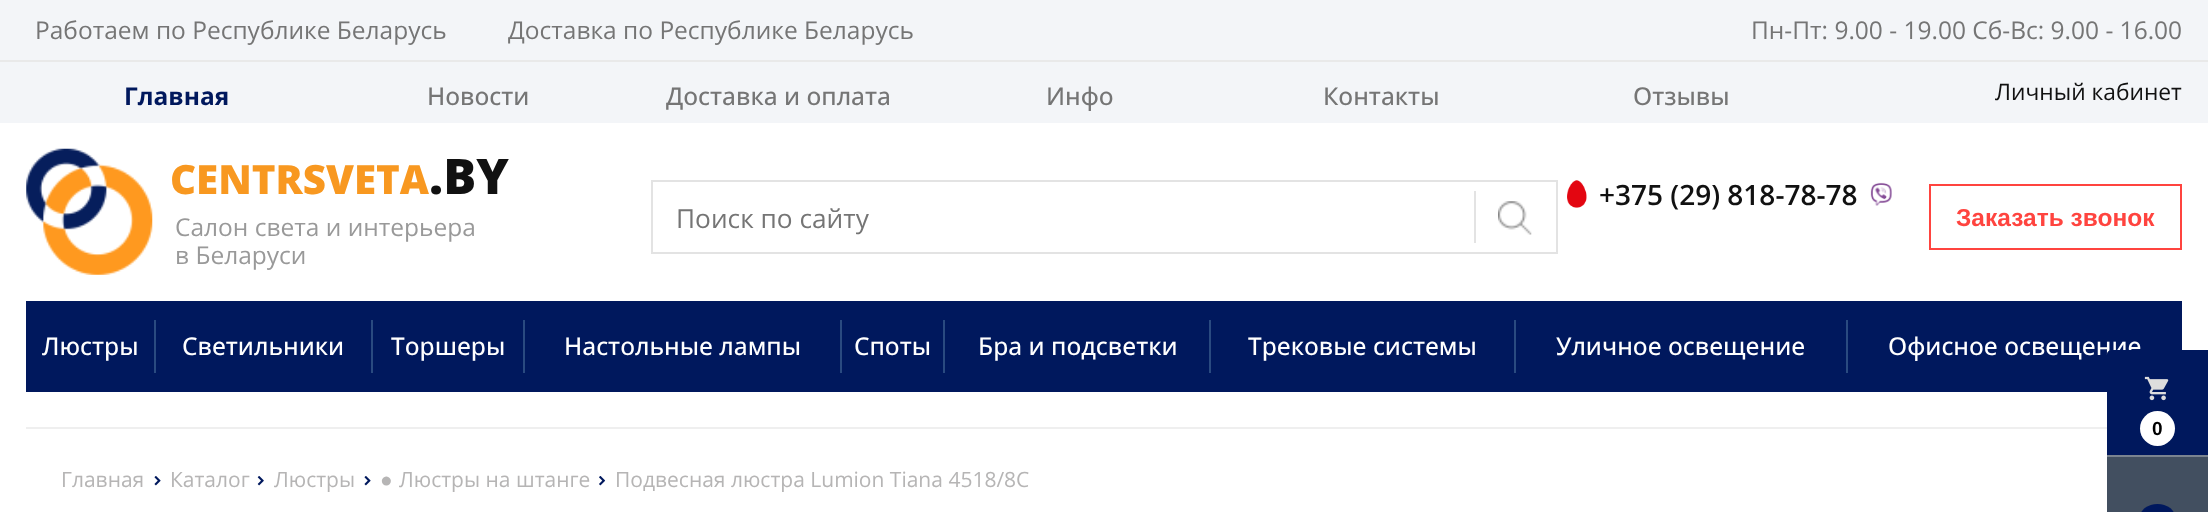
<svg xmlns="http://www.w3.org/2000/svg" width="2208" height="512">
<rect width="100%" height="100%" fill="#fff"/>
<rect width="2208" height="60" fill="#f3f5f8"/>
<rect y="60" width="2208" height="2" fill="#e9e9e9"/>
<text x="35" y="39" style="font-family:Open Sans;font-size:24.5px;fill:#757575">Работаем по Республике Беларусь</text>
<text x="508" y="39" style="font-family:Open Sans;font-size:24.5px;fill:#757575">Доставка по Республике Беларусь</text>
<text x="1751" y="39" style="font-family:Open Sans;font-size:24.5px;fill:#757575">Пн-Пт: 9.00 - 19.00 Сб-Вс: 9.00 - 16.00</text>
<rect y="62" width="2208" height="61" fill="#f3f5f8"/>
<text x="124" y="105" style="font-family:Open Sans;font-size:24.5px;font-weight:bold;fill:#00185d">Главная</text>
<text x="427" y="105" style="font-family:Open Sans;font-size:24.5px;font-weight:500;fill:#757575">Новости</text>
<text x="666" y="105" style="font-family:Open Sans;font-size:24.5px;font-weight:500;fill:#757575">Доставка и оплата</text>
<text x="1046" y="105" style="font-family:Open Sans;font-size:24.5px;font-weight:500;fill:#757575">Инфо</text>
<text x="1323" y="105" style="font-family:Open Sans;font-size:24.5px;font-weight:500;fill:#757575">Контакты</text>
<text x="1633" y="105" style="font-family:Open Sans;font-size:24.5px;font-weight:500;fill:#757575">Отзывы</text>
<text x="1995" y="100" style="font-family:Open Sans;font-size:22.75px;fill:#111">Личный кабинет</text>
<image x="26" y="148" width="127" height="127" href="media/1.png"/>
<text x="170" y="194" style="font-family:Open Sans;font-size:40.25px;font-weight:800;fill:#f89820">СENTRSVETA</text>
<text x="429" y="194" style="font-family:Open Sans;font-size:49px;font-weight:800;fill:#111">.BY</text>
<text x="175" y="236" style="font-family:Open Sans;font-size:24.5px;fill:#999">Салон света и интерьера</text>
<text x="175" y="264" style="font-family:Open Sans;font-size:24.5px;fill:#999">в Беларуси</text>
<image x="1567" y="180" width="20" height="28" href="media/2.png"/>
<text x="1599" y="205" style="font-family:Open Sans;font-size:28px;font-weight:600;fill:#111">+375 (29) 818-78-78</text>
<image x="1870" y="182" width="22" height="24" href="media/3.png"/>
<rect x="652" y="181" width="905" height="72" fill="none" stroke="#e3e3e3" stroke-width="2"/>
<rect x="1474" y="191" width="2" height="52" fill="#e3e3e3"/>
<text x="676" y="228" style="font-family:Open Sans;font-size:26.25px;fill:#757575">Поиск по сайту</text>
<image x="1498" y="201" width="34" height="34" href="media/4.png"/>
<rect x="1930" y="185" width="251" height="64" fill="none" stroke="#ff443f" stroke-width="2"/>
<text x="1956" y="226" style="font-family:Liberation Sans;font-size:24.5px;font-weight:bold;fill:#ff443f">Заказать звонок</text>
<rect x="26" y="301" width="2156" height="91" fill="#00185d"/>
<rect x="154" y="320" width="2" height="53" fill="#2a4a80"/>
<text x="42" y="355" style="font-family:Open Sans;font-size:24.5px;font-weight:500;fill:#fff">Люстры</text>
<rect x="371" y="320" width="2" height="53" fill="#2a4a80"/>
<text x="182" y="355" style="font-family:Open Sans;font-size:24.5px;font-weight:500;fill:#fff">Светильники</text>
<rect x="523" y="320" width="2" height="53" fill="#2a4a80"/>
<text x="391" y="355" style="font-family:Open Sans;font-size:24.5px;font-weight:500;fill:#fff">Торшеры</text>
<rect x="840" y="320" width="2" height="53" fill="#2a4a80"/>
<text x="564" y="355" style="font-family:Open Sans;font-size:24.5px;font-weight:500;fill:#fff">Настольные лампы</text>
<rect x="943" y="320" width="2" height="53" fill="#2a4a80"/>
<text x="854" y="355" style="font-family:Open Sans;font-size:24.5px;font-weight:500;fill:#fff">Споты</text>
<rect x="1209" y="320" width="2" height="53" fill="#2a4a80"/>
<text x="978" y="355" style="font-family:Open Sans;font-size:24.5px;font-weight:500;fill:#fff">Бра и подсветки</text>
<rect x="1514" y="320" width="2" height="53" fill="#2a4a80"/>
<text x="1248" y="355" style="font-family:Open Sans;font-size:24.5px;font-weight:500;fill:#fff">Трековые системы</text>
<rect x="1846" y="320" width="2" height="53" fill="#2a4a80"/>
<text x="1556" y="355" style="font-family:Open Sans;font-size:24.5px;font-weight:500;fill:#fff">Уличное освещение</text>
<text x="1888" y="355" style="font-family:Open Sans;font-size:24.5px;font-weight:500;fill:#fff">Офисное освещение</text>
<path d="M2112 350h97v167h-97c-3 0-5-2-5-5v-157c0-3 2-5 5-5z" fill="#424f60"/>
<rect x="2107" y="455" width="101" height="2" fill="#7b8490"/>
<path d="M2112 350h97v105h-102v-100c0-3 2-5 5-5z" fill="#00185d"/>
<image x="2144" y="376" width="25" height="25" href="media/5.png"/>
<circle cx="2157.5" cy="428.5" r="17.5" fill="#fff"/>
<text x="2152" y="435" style="font-family:Liberation Sans;font-size:19px;font-weight:bold;fill:#000">0</text>
<rect x="2140" y="504" width="35" height="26" rx="17.5" fill="#00185d"/>
<rect x="26" y="427" width="2081" height="2" fill="#efefef"/>
<text x="61" y="487" style="font-family:Open Sans;font-size:21px;fill:#b6b5b5">Главная</text>
<image x="154" y="476" width="7" height="10" href="media/6.png"/>
<text x="170" y="487" style="font-family:Open Sans;font-size:21px;fill:#b6b5b5">Каталог</text>
<image x="257" y="476" width="7" height="10" href="media/7.png"/>
<text x="274" y="487" style="font-family:Open Sans;font-size:21px;fill:#b6b5b5">Люстры</text>
<image x="364" y="476" width="7" height="10" href="media/6.png"/>
<text x="380" y="487" style="font-family:Liberation Sans;font-size:21px;fill:#b6b5b5">●</text>
<text x="399" y="487" style="font-family:Open Sans;font-size:21px;fill:#b6b5b5">Люстры на штанге</text>
<image x="599" y="476" width="7" height="10" href="media/8.png"/>
<text x="615" y="487" style="font-family:Open Sans;font-size:21px;fill:#b6b5b5">Подвесная люстра Lumion Tiana 4518/8C</text>
</svg>
